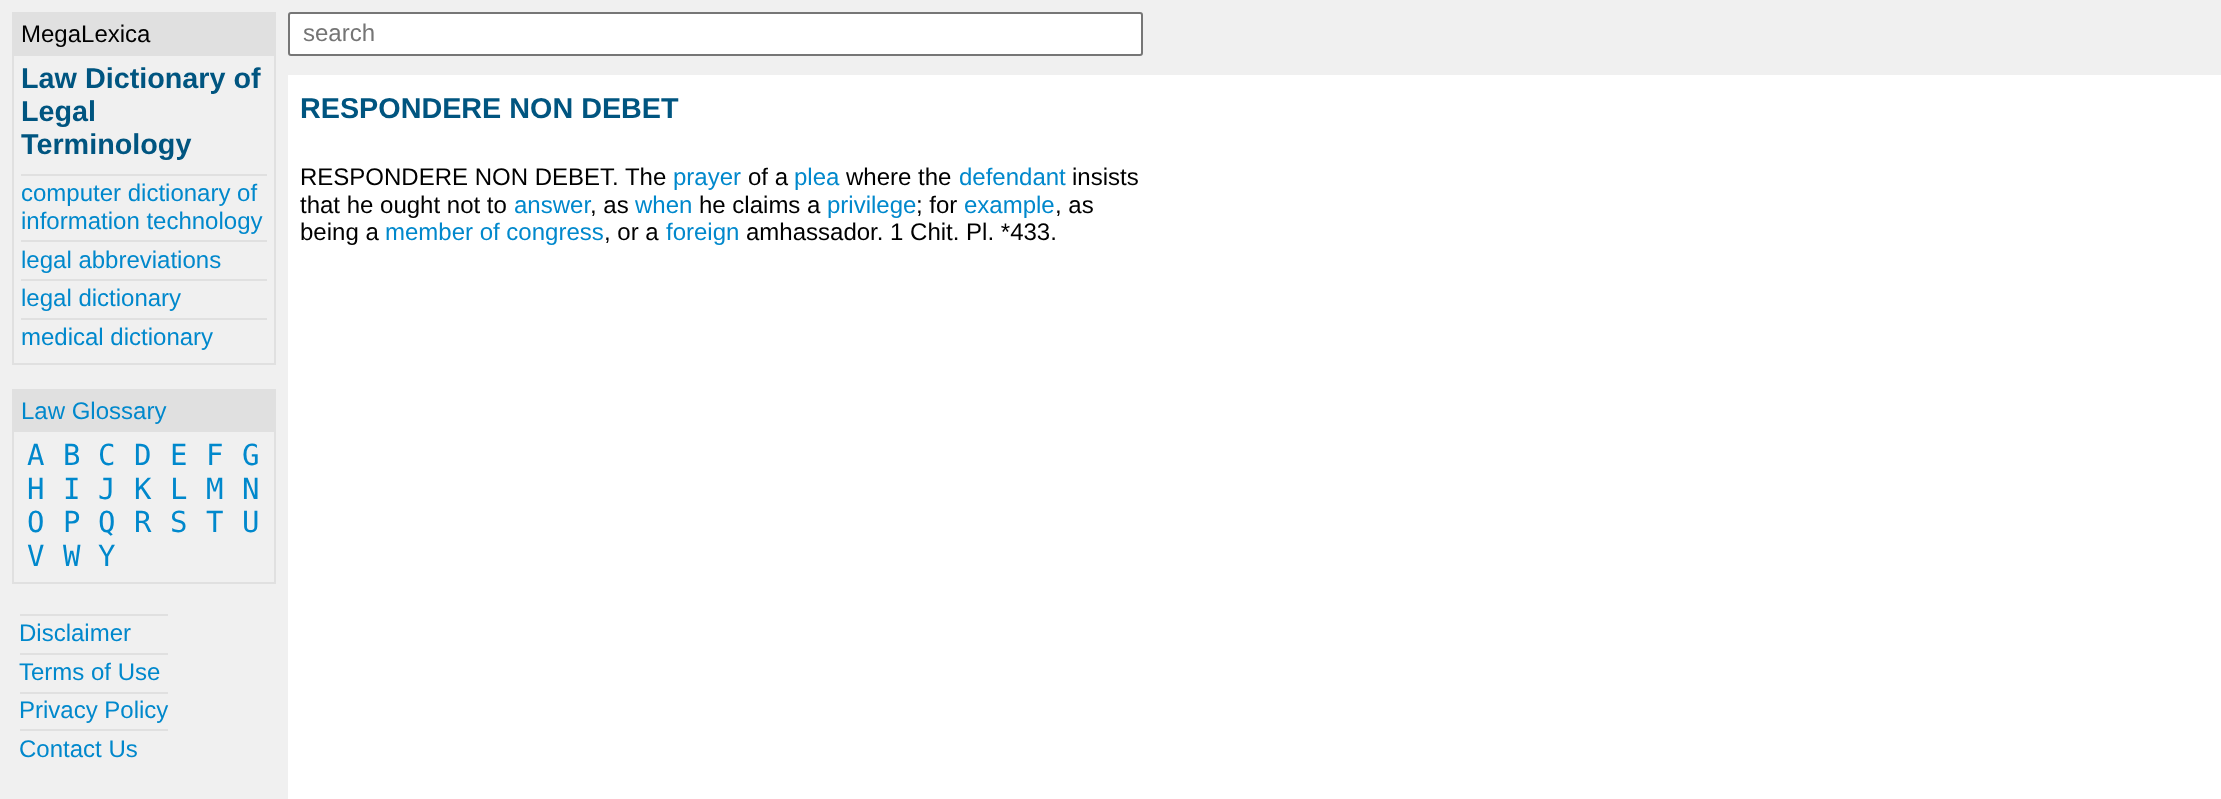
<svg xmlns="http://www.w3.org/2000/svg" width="2221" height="799">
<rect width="100%" height="100%" fill="#fff"/>
<rect width="288" height="799" fill="#f0f0f0"/>
<rect x="13" y="13" width="262" height="351" fill="none" stroke="#e0e0e0" stroke-width="2"/>
<rect x="14" y="14" width="260" height="42" fill="#e0e0e0"/>
<text x="21" y="42" style="font-family:Liberation Sans;font-size:24px;fill:#000">MegaLexica</text>
<text x="21" y="88" style="font-family:Liberation Sans;font-size:28.75px;font-weight:bold;fill:#005580">Law Dictionary of</text>
<text x="21" y="121" style="font-family:Liberation Sans;font-size:28.75px;font-weight:bold;fill:#005580">Legal</text>
<text x="21" y="154" style="font-family:Liberation Sans;font-size:28.75px;font-weight:bold;fill:#005580">Terminology</text>
<rect x="21" y="174" width="246" height="2" fill="#e0e0e0"/>
<text x="21" y="201" style="font-family:Liberation Sans;font-size:24px;fill:#08c">computer dictionary of</text>
<text x="21" y="229" style="font-family:Liberation Sans;font-size:24px;fill:#08c">information technology</text>
<rect x="21" y="240" width="246" height="2" fill="#e0e0e0"/>
<text x="21" y="268" style="font-family:Liberation Sans;font-size:24px;fill:#08c">legal abbreviations</text>
<rect x="21" y="279" width="246" height="2" fill="#e0e0e0"/>
<text x="21" y="306" style="font-family:Liberation Sans;font-size:24px;fill:#08c">legal dictionary</text>
<rect x="21" y="318" width="246" height="2" fill="#e0e0e0"/>
<text x="21" y="345" style="font-family:Liberation Sans;font-size:24px;fill:#08c">medical dictionary</text>
<rect x="13" y="390" width="262" height="193" fill="none" stroke="#e0e0e0" stroke-width="2"/>
<rect x="14" y="391" width="260" height="41" fill="#e0e0e0"/>
<text x="21" y="419" style="font-family:Liberation Sans;font-size:24px;fill:#08c">Law Glossary</text>
<text x="27" y="465" style="font-family:DejaVu Sans Mono;font-size:29px;fill:#08c">A</text>
<text x="63" y="465" style="font-family:DejaVu Sans Mono;font-size:29px;fill:#08c">B</text>
<text x="98" y="465" style="font-family:DejaVu Sans Mono;font-size:29px;fill:#08c">C</text>
<text x="134" y="465" style="font-family:DejaVu Sans Mono;font-size:29px;fill:#08c">D</text>
<text x="170" y="465" style="font-family:DejaVu Sans Mono;font-size:29px;fill:#08c">E</text>
<text x="206" y="465" style="font-family:DejaVu Sans Mono;font-size:29px;fill:#08c">F</text>
<text x="242" y="465" style="font-family:DejaVu Sans Mono;font-size:29px;fill:#08c">G</text>
<text x="27" y="499" style="font-family:DejaVu Sans Mono;font-size:29px;fill:#08c">H</text>
<text x="63" y="499" style="font-family:DejaVu Sans Mono;font-size:29px;fill:#08c">I</text>
<text x="98" y="499" style="font-family:DejaVu Sans Mono;font-size:29px;fill:#08c">J</text>
<text x="134" y="499" style="font-family:DejaVu Sans Mono;font-size:29px;fill:#08c">K</text>
<text x="170" y="499" style="font-family:DejaVu Sans Mono;font-size:29px;fill:#08c">L</text>
<text x="206" y="499" style="font-family:DejaVu Sans Mono;font-size:29px;fill:#08c">M</text>
<text x="242" y="499" style="font-family:DejaVu Sans Mono;font-size:29px;fill:#08c">N</text>
<text x="27" y="532" style="font-family:DejaVu Sans Mono;font-size:29px;fill:#08c">O</text>
<text x="63" y="532" style="font-family:DejaVu Sans Mono;font-size:29px;fill:#08c">P</text>
<text x="98" y="532" style="font-family:DejaVu Sans Mono;font-size:29px;fill:#08c">Q</text>
<text x="134" y="532" style="font-family:DejaVu Sans Mono;font-size:29px;fill:#08c">R</text>
<text x="170" y="532" style="font-family:DejaVu Sans Mono;font-size:29px;fill:#08c">S</text>
<text x="206" y="532" style="font-family:DejaVu Sans Mono;font-size:29px;fill:#08c">T</text>
<text x="242" y="532" style="font-family:DejaVu Sans Mono;font-size:29px;fill:#08c">U</text>
<text x="27" y="566" style="font-family:DejaVu Sans Mono;font-size:29px;fill:#08c">V</text>
<text x="63" y="566" style="font-family:DejaVu Sans Mono;font-size:29px;fill:#08c">W</text>
<text x="98" y="566" style="font-family:DejaVu Sans Mono;font-size:29px;fill:#08c">Y</text>
<rect x="20" y="614" width="148" height="2" fill="#e0e0e0"/>
<text x="19" y="641" style="font-family:Liberation Sans;font-size:24px;fill:#08c">Disclaimer</text>
<rect x="20" y="653" width="148" height="2" fill="#e0e0e0"/>
<text x="19" y="680" style="font-family:Liberation Sans;font-size:24px;fill:#08c">Terms of Use</text>
<rect x="20" y="692" width="148" height="2" fill="#e0e0e0"/>
<text x="19" y="718" style="font-family:Liberation Sans;font-size:24px;fill:#08c">Privacy Policy</text>
<rect x="20" y="729" width="148" height="2" fill="#e0e0e0"/>
<text x="19" y="757" style="font-family:Liberation Sans;font-size:24px;fill:#08c">Contact Us</text>
<rect x="288" width="1933" height="75" fill="#f0f0f0"/>
<rect x="289" y="13" width="853" height="42" rx="2" fill="#fff" stroke="#767676" stroke-width="2"/>
<text x="303" y="41" style="font-family:Liberation Sans;font-size:24px;fill:#757575">search</text>
<text x="300" y="118" style="font-family:Liberation Sans;font-size:28.75px;font-weight:bold;fill:#005580">RESPONDERE NON DEBET</text>
<text x="300" y="185" style="font-family:Liberation Sans;font-size:24px;fill:#000">RESPONDERE NON DEBET. The</text>
<text x="673" y="185" style="font-family:Liberation Sans;font-size:24px;fill:#08c">prayer</text>
<text x="748" y="185" style="font-family:Liberation Sans;font-size:24px;fill:#000">of a</text>
<text x="794" y="185" style="font-family:Liberation Sans;font-size:24px;fill:#08c">plea</text>
<text x="846" y="185" style="font-family:Liberation Sans;font-size:24px;fill:#000">where the</text>
<text x="959" y="185" style="font-family:Liberation Sans;font-size:24px;fill:#08c">defendant</text>
<text x="1072" y="185" style="font-family:Liberation Sans;font-size:24px;fill:#000">insists</text>
<text x="300" y="213" style="font-family:Liberation Sans;font-size:24px;fill:#000">that he ought not to</text>
<text x="514" y="213" style="font-family:Liberation Sans;font-size:24px;fill:#08c">answer</text>
<text x="590" y="213" style="font-family:Liberation Sans;font-size:24px;fill:#000">, as</text>
<text x="635" y="213" style="font-family:Liberation Sans;font-size:24px;fill:#08c">when</text>
<text x="699" y="213" style="font-family:Liberation Sans;font-size:24px;fill:#000">he claims a</text>
<text x="827" y="213" style="font-family:Liberation Sans;font-size:24px;fill:#08c">privilege</text>
<text x="916" y="213" style="font-family:Liberation Sans;font-size:24px;fill:#000">; for</text>
<text x="964" y="213" style="font-family:Liberation Sans;font-size:24px;fill:#08c">example</text>
<text x="1055" y="213" style="font-family:Liberation Sans;font-size:24px;fill:#000">, as</text>
<text x="300" y="240" style="font-family:Liberation Sans;font-size:24px;fill:#000">being a</text>
<text x="385" y="240" style="font-family:Liberation Sans;font-size:24px;fill:#08c">member of congress</text>
<text x="604" y="240" style="font-family:Liberation Sans;font-size:24px;fill:#000">, or a</text>
<text x="666" y="240" style="font-family:Liberation Sans;font-size:24px;fill:#08c">foreign</text>
<text x="746" y="240" style="font-family:Liberation Sans;font-size:24px;fill:#000">amhassador. 1 Chit. Pl. *433.</text>
</svg>
